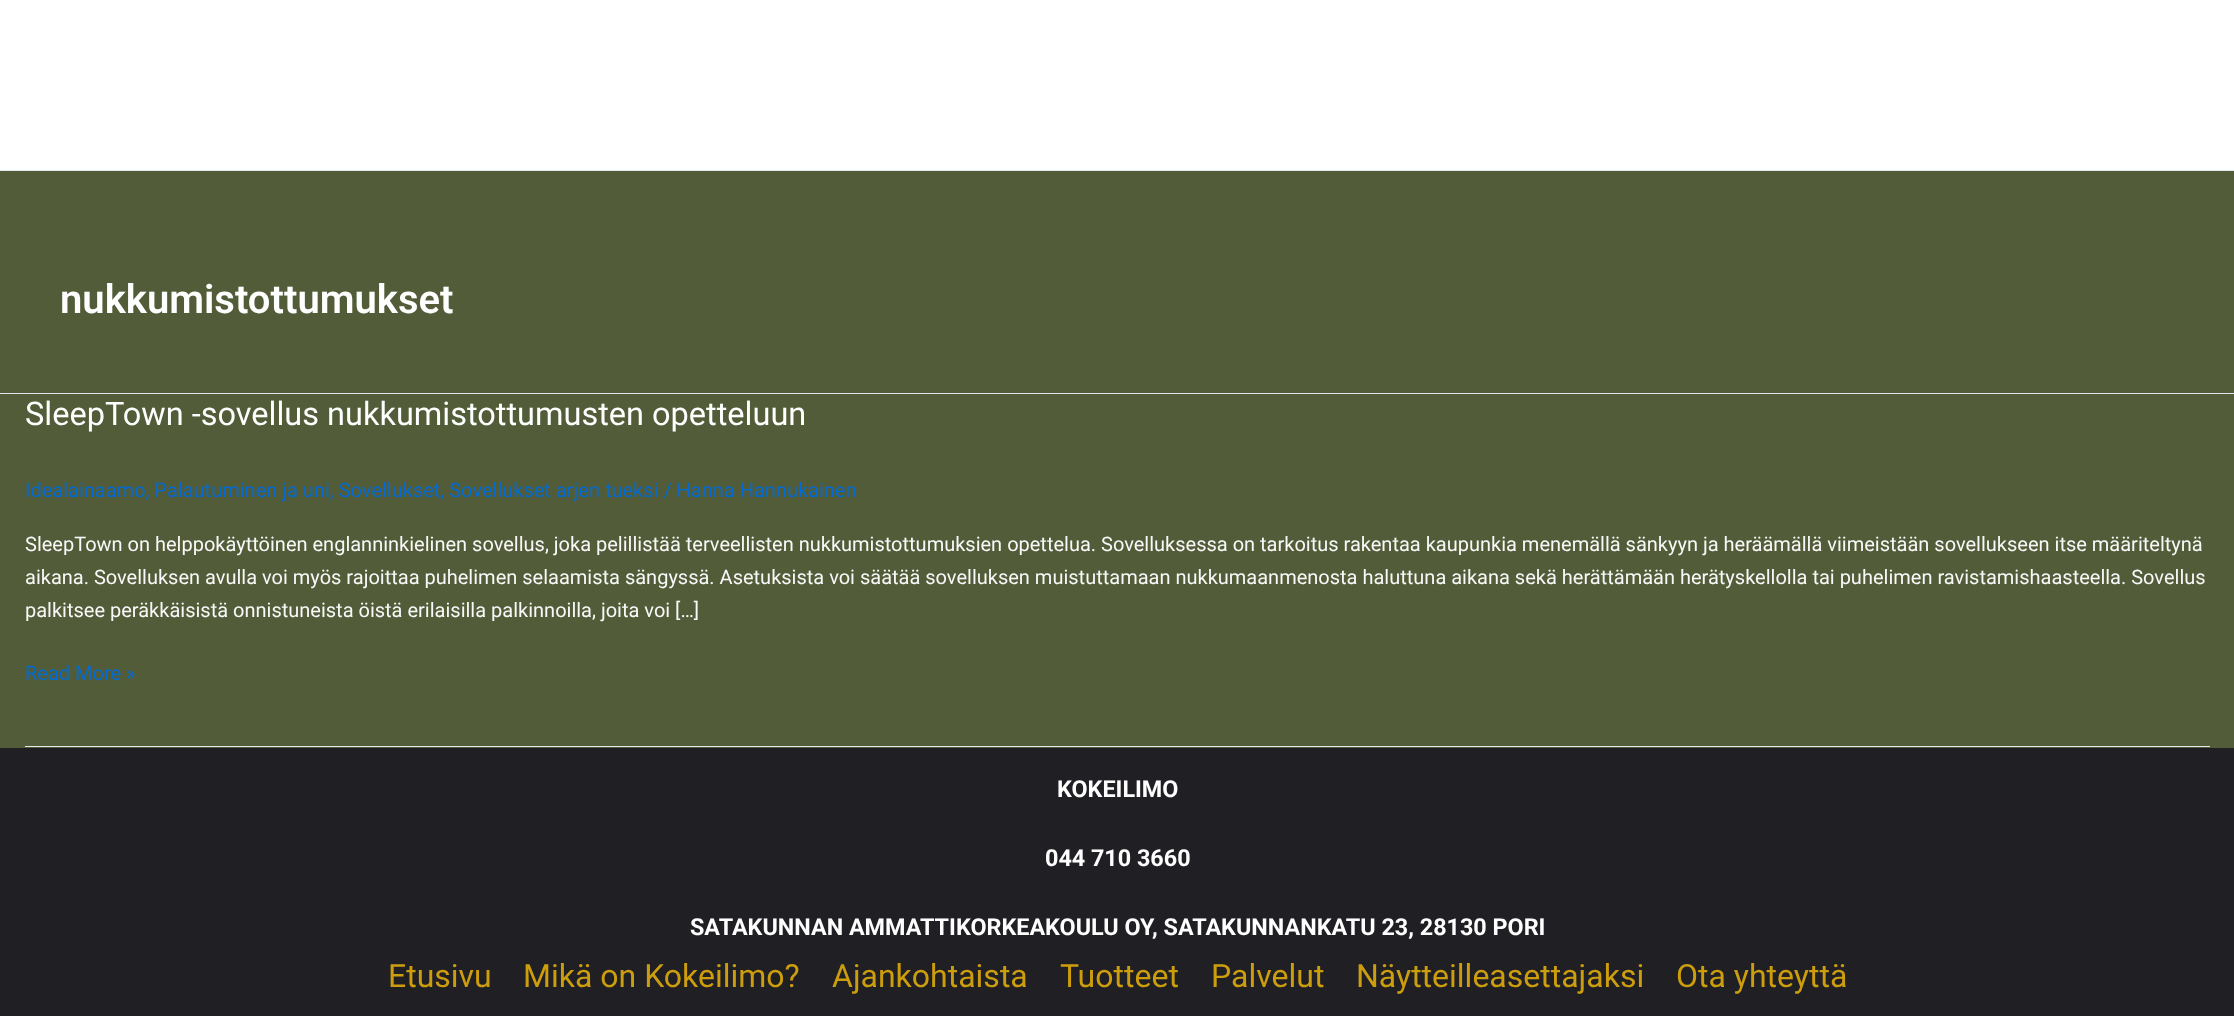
<svg xmlns="http://www.w3.org/2000/svg" width="2234" height="1016">
<rect width="100%" height="100%" fill="#525c38"/>
<rect width="2234" height="170" fill="#fff"/>
<rect y="170" width="2234" height="1" fill="#e2e8f0"/>
<rect y="393" width="2234" height="1" fill="#e2e8f0"/>
<text x="60" y="313" style="font-family:Roboto;font-size:40px;font-weight:600;fill:#fefefe">nukkumistottumukset</text>
<rect x="25" y="746" width="2185" height="1" fill="#e2e8f0"/>
<text x="25" y="425" style="font-family:Roboto;font-size:32.5px;fill:#fefefe">SleepTown -sovellus nukkumistottumusten opetteluun</text>
<text x="25" y="497" style="font-family:Roboto;font-size:20px;fill:#046bd2">Idealainaamo, Palautuminen ja uni, Sovellukset, Sovellukset arjen tueksi / Hanna Hannukainen</text>
<text x="25" y="551" style="font-family:Roboto;font-size:20px;fill:#f8f8f8">SleepTown on helppokäyttöinen englanninkielinen sovellus, joka pelillistää terveellisten nukkumistottumuksien opettelua. Sovelluksessa on tarkoitus rakentaa kaupunkia menemällä sänkyyn ja heräämällä viimeistään sovellukseen itse määriteltynä</text>
<text x="25" y="584" style="font-family:Roboto;font-size:20px;fill:#f8f8f8">aikana. Sovelluksen avulla voi myös rajoittaa puhelimen selaamista sängyssä. Asetuksista voi säätää sovelluksen muistuttamaan nukkumaanmenosta haluttuna aikana sekä herättämään herätyskellolla tai puhelimen ravistamishaasteella. Sovellus</text>
<text x="25" y="617" style="font-family:Roboto;font-size:20px;fill:#f8f8f8">palkitsee peräkkäisistä onnistuneista öistä erilaisilla palkinnoilla, joita voi […]</text>
<text x="25" y="680" style="font-family:Roboto;font-size:20px;fill:#046bd2">Read More »</text>
<rect y="748" width="2234" height="268" fill="#201f24"/>
<text x="1057" y="797" style="font-family:Roboto;font-size:23.35px;font-weight:bold;fill:#fefefe">KOKEILIMO</text>
<text x="1045" y="866" style="font-family:Roboto;font-size:23.35px;font-weight:bold;fill:#fefefe">044 710 3660</text>
<text x="690" y="935" style="font-family:Roboto;font-size:23.35px;font-weight:bold;fill:#fefefe">SATAKUNNAN AMMATTIKORKEAKOULU OY, SATAKUNNANKATU 23, 28130 PORI</text>
<text x="388" y="987" style="font-family:Roboto;font-size:32px;fill:#cc9e0d">Etusivu</text>
<text x="523" y="987" style="font-family:Roboto;font-size:32px;fill:#cc9e0d">Mikä on Kokeilimo?</text>
<text x="832" y="987" style="font-family:Roboto;font-size:32px;fill:#cc9e0d">Ajankohtaista</text>
<text x="1060" y="987" style="font-family:Roboto;font-size:32px;fill:#cc9e0d">Tuotteet</text>
<text x="1211" y="987" style="font-family:Roboto;font-size:32px;fill:#cc9e0d">Palvelut</text>
<text x="1356" y="987" style="font-family:Roboto;font-size:32px;fill:#cc9e0d">Näytteilleasettajaksi</text>
<text x="1676" y="987" style="font-family:Roboto;font-size:32px;fill:#cc9e0d">Ota yhteyttä</text>
</svg>
